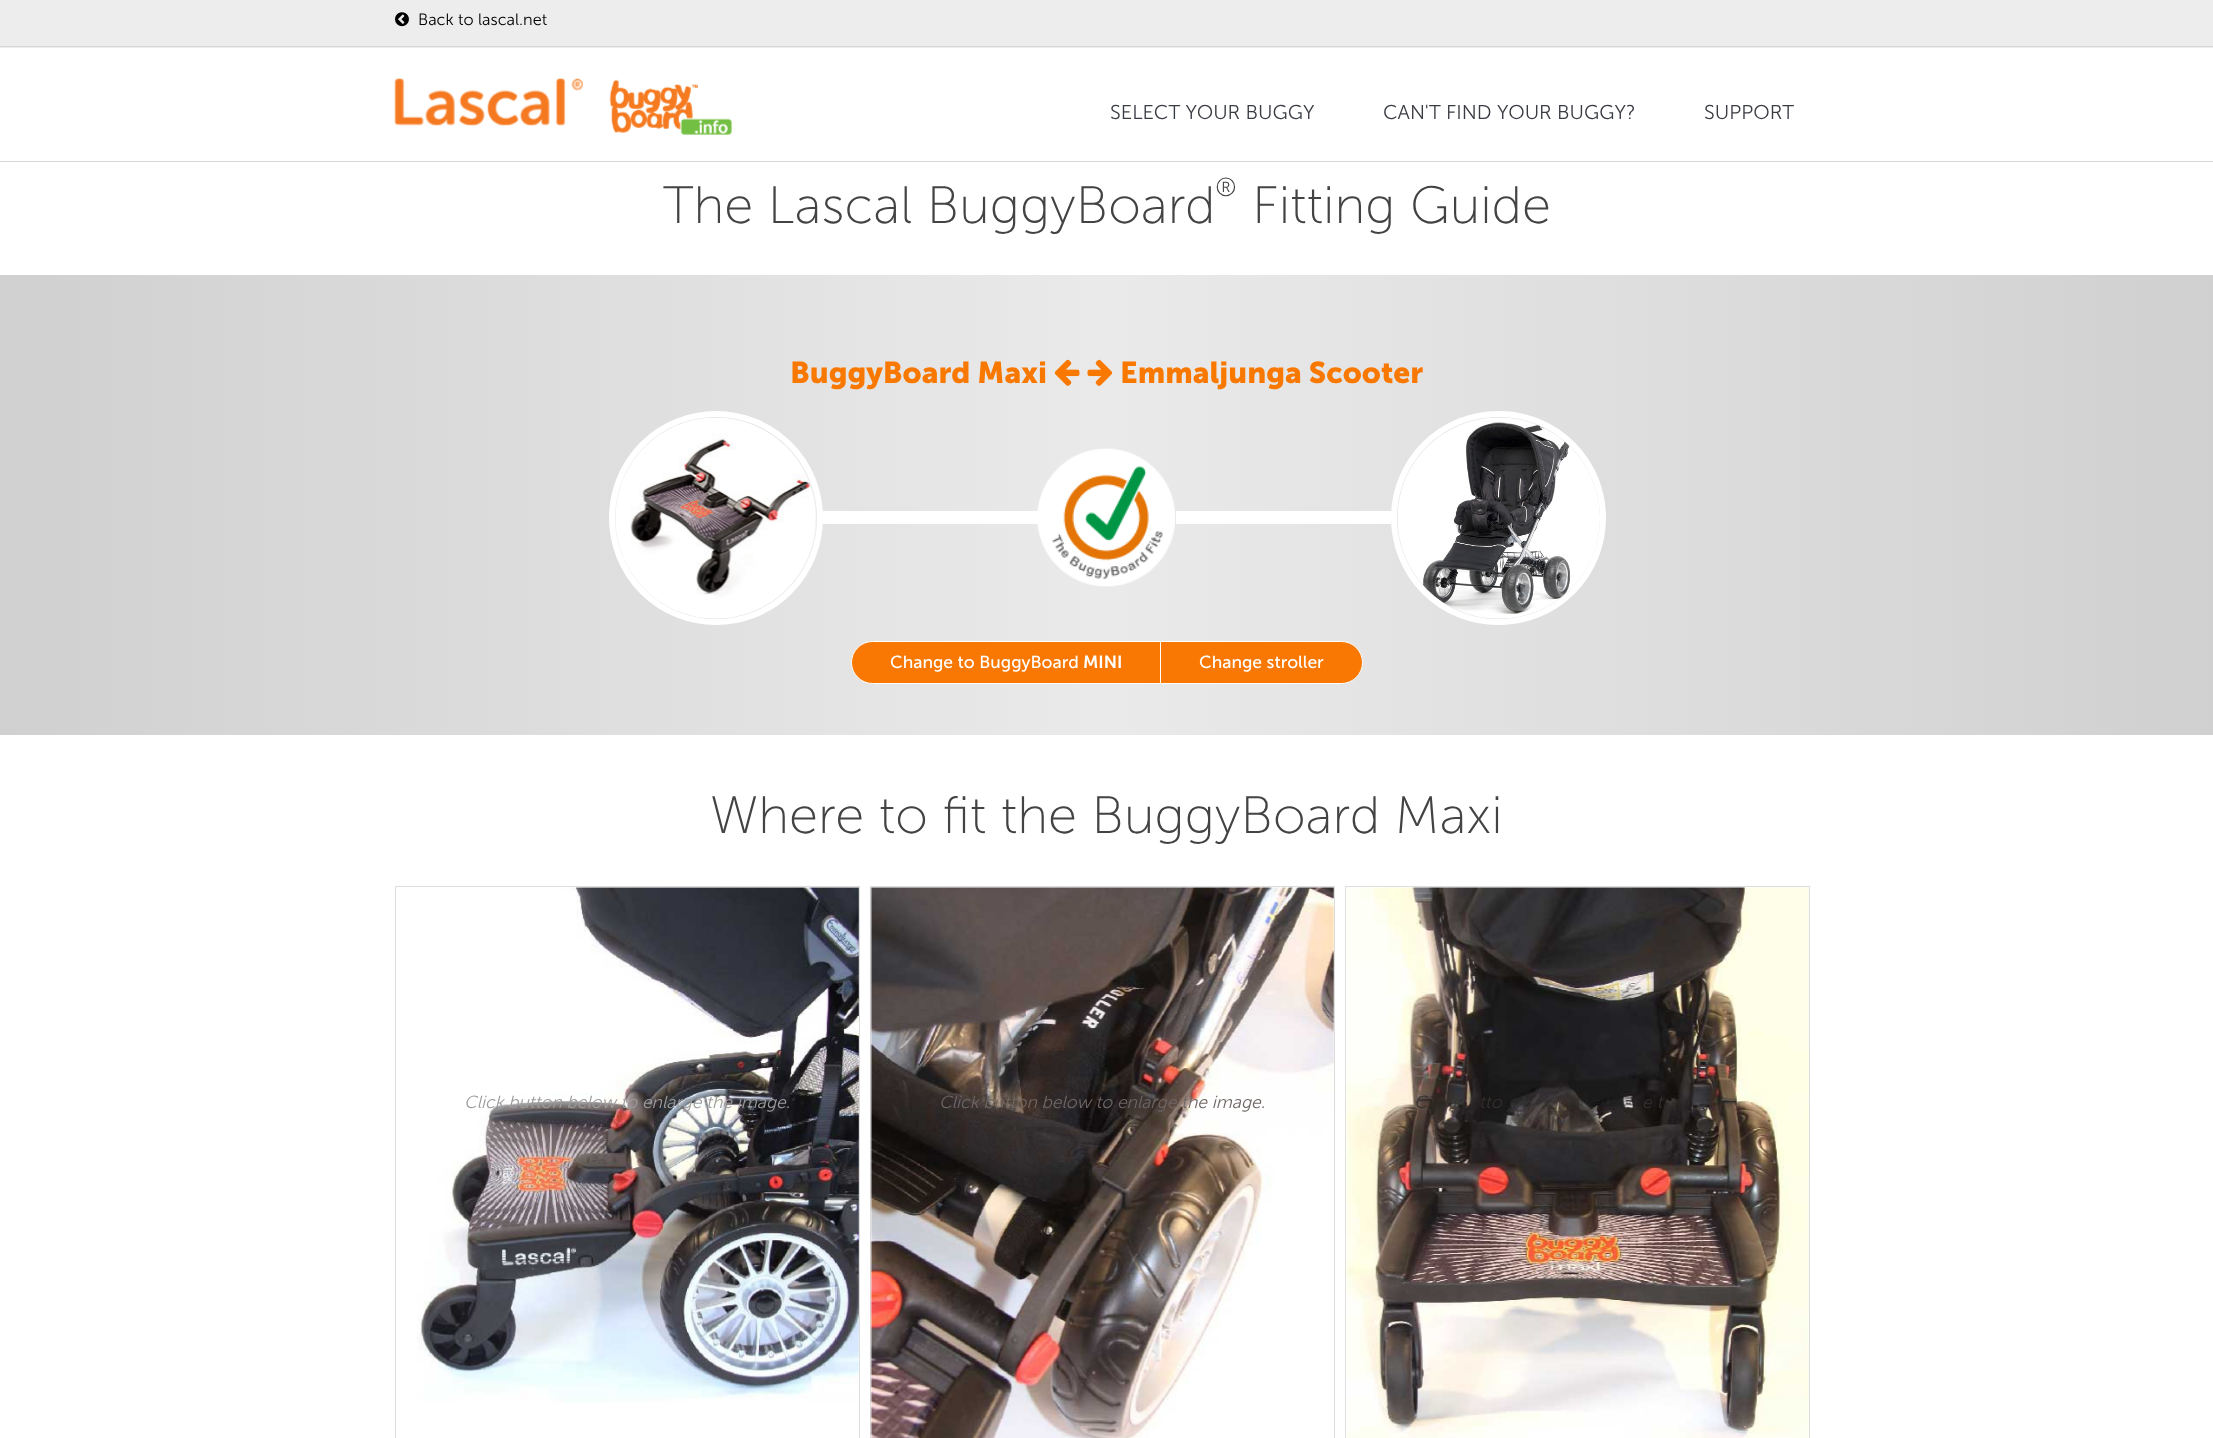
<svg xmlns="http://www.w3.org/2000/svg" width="2213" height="1438">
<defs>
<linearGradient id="g1" gradientUnits="userSpaceOnUse" x1="0" y1="505" x2="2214" y2="505"><stop offset="0" stop-color="#d0d0d0"/><stop offset="0.5" stop-color="#eaeaea"/><stop offset="1" stop-color="#d0d0d0"/></linearGradient>
</defs>
<rect width="100%" height="100%" fill="#fff"/>
<rect width="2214" height="163" fill="#d7d7d7" filter="blur(0.5px)"/>
<rect y="48" width="2213" height="115" fill="#fff"/>
<rect y="161" width="2213" height="1" fill="#d7d7d7"/>
<rect width="2213" height="48" fill="#ededed"/>
<rect y="46" width="2213" height="1" fill="#d6d6d6"/>
<image x="395" y="12" width="14" height="15" href="media/1.png"/>
<text x="418" y="25" style="font-family:'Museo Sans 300';font-size:16.25px;font-weight:300;fill:#000">Back to lascal.net</text>
<image x="394" y="78" width="189" height="48" href="media/2.png"/>
<image x="609" y="79" width="123" height="56" href="media/3.png"/>
<text x="1110" y="119" style="font-family:'Museo Sans 300';font-size:20px;font-weight:300;fill:#3a3c43">SELECT YOUR BUGGY</text>
<text x="1383" y="119" style="font-family:'Museo Sans 300';font-size:20px;font-weight:300;fill:#3a3c43">CAN'T FIND YOUR BUGGY?</text>
<text x="1704" y="119" style="font-family:'Museo Sans 300';font-size:20px;font-weight:300;fill:#3a3c43">SUPPORT</text>
<text x="663" y="223" style="font-family:'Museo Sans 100';font-size:52.5px;font-weight:300;fill:#434343">The Lascal BuggyBoard</text>
<text x="1215" y="196" style="font-family:'Museo Sans 100';font-size:26px;font-weight:300;fill:#434343">®</text>
<text x="1252" y="223" style="font-family:'Museo Sans 100';font-size:52.5px;font-weight:300;fill:#434343">Fitting Guide</text>
<rect y="275" width="2213" height="460" fill="url(#g1)"/>
<text x="790" y="383" style="font-family:'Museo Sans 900';font-size:30px;font-weight:bold;fill:#f97800">BuggyBoard Maxi</text>
<image x="1054" y="359" width="26" height="27" href="media/4.png"/>
<image x="1087" y="359" width="26" height="27" href="media/5.png"/>
<text x="1120" y="383" style="font-family:'Museo Sans 900';font-size:30px;font-weight:bold;fill:#f97800">Emmaljunga Scooter</text>
<circle cx="716" cy="518" r="104" fill="none" stroke="#fff" stroke-width="6"/>
<image x="615" y="417" width="202" height="202" href="media/6.png"/>
<rect x="823" y="511" width="215" height="13" fill="#fff"/>
<image x="1037" y="448" width="138" height="139" href="media/7.png"/>
<rect x="1394" y="414" width="209" height="208" rx="104" fill="none" stroke="#fff" stroke-width="6"/>
<image x="1397" y="417" width="203" height="202" href="media/8.png"/>
<rect x="1176" y="511" width="215" height="13" fill="#fff"/>
<path d="M872.5 641.5h288v42h-288c-11.5 0-21-9.5-21-21c0-11.5 9.5-21 21-21z" fill="#f97803" stroke="#fff"/>
<text x="890" y="668" style="font-family:'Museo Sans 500';font-size:17.5px;fill:#fff">Change to BuggyBoard</text>
<text x="1083" y="668" style="font-family:'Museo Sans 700';font-size:17.5px;font-weight:600;fill:#fff">MINI</text>
<path d="M1160.5 641.5h181c11.5 0 21 9.5 21 21c0 11.5-9.5 21-21 21h-181z" fill="#f97803" stroke="#fff"/>
<text x="1199" y="668" style="font-family:'Museo Sans 500';font-size:17.5px;fill:#fff">Change stroller</text>
<text x="710" y="833" style="font-family:'Museo Sans 100';font-size:52.5px;font-weight:300;fill:#434343">Where to fit the BuggyBoard Maxi</text>
<rect x="395.5" y="886.5" width="464" height="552" fill="none" stroke="#ddd"/>
<image x="417" y="887" width="442" height="517" href="media/9.png"/>
<text x="464" y="1108" style="font-family:'Museo Sans 300';font-size:17.5px;font-weight:300;font-style:italic;fill:#9c9b9d">Click button below to enlarge the image.</text>
<rect x="870.5" y="886.5" width="464" height="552" fill="none" stroke="#ddd"/>
<image x="870" y="887" width="464" height="551" href="media/10.png"/>
<text x="939" y="1108" style="font-family:'Museo Sans 300';font-size:17.5px;font-weight:300;font-style:italic;fill:#6f6664">Click button below to enlarge the image.</text>
<rect x="1345.5" y="886.5" width="464" height="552" fill="none" stroke="#ddd"/>
<image x="1345" y="887" width="464" height="551" href="media/11.png"/>
<text x="1414" y="1108" style="font-family:'Museo Sans 300';font-size:17.5px;font-weight:300;font-style:italic;fill:#35302d">C</text>
<text x="1479" y="1108" style="font-family:'Museo Sans 300';font-size:17.5px;font-weight:300;font-style:italic;fill:#35302d">tto</text>
<text x="1642" y="1108" style="font-family:'Museo Sans 300';font-size:17.5px;font-weight:300;font-style:italic;fill:#35302d">e t</text>
<text x="1736" y="1108" style="font-family:'Museo Sans 300';font-size:17.5px;font-weight:300;font-style:italic;fill:#35302d">.</text>
</svg>
